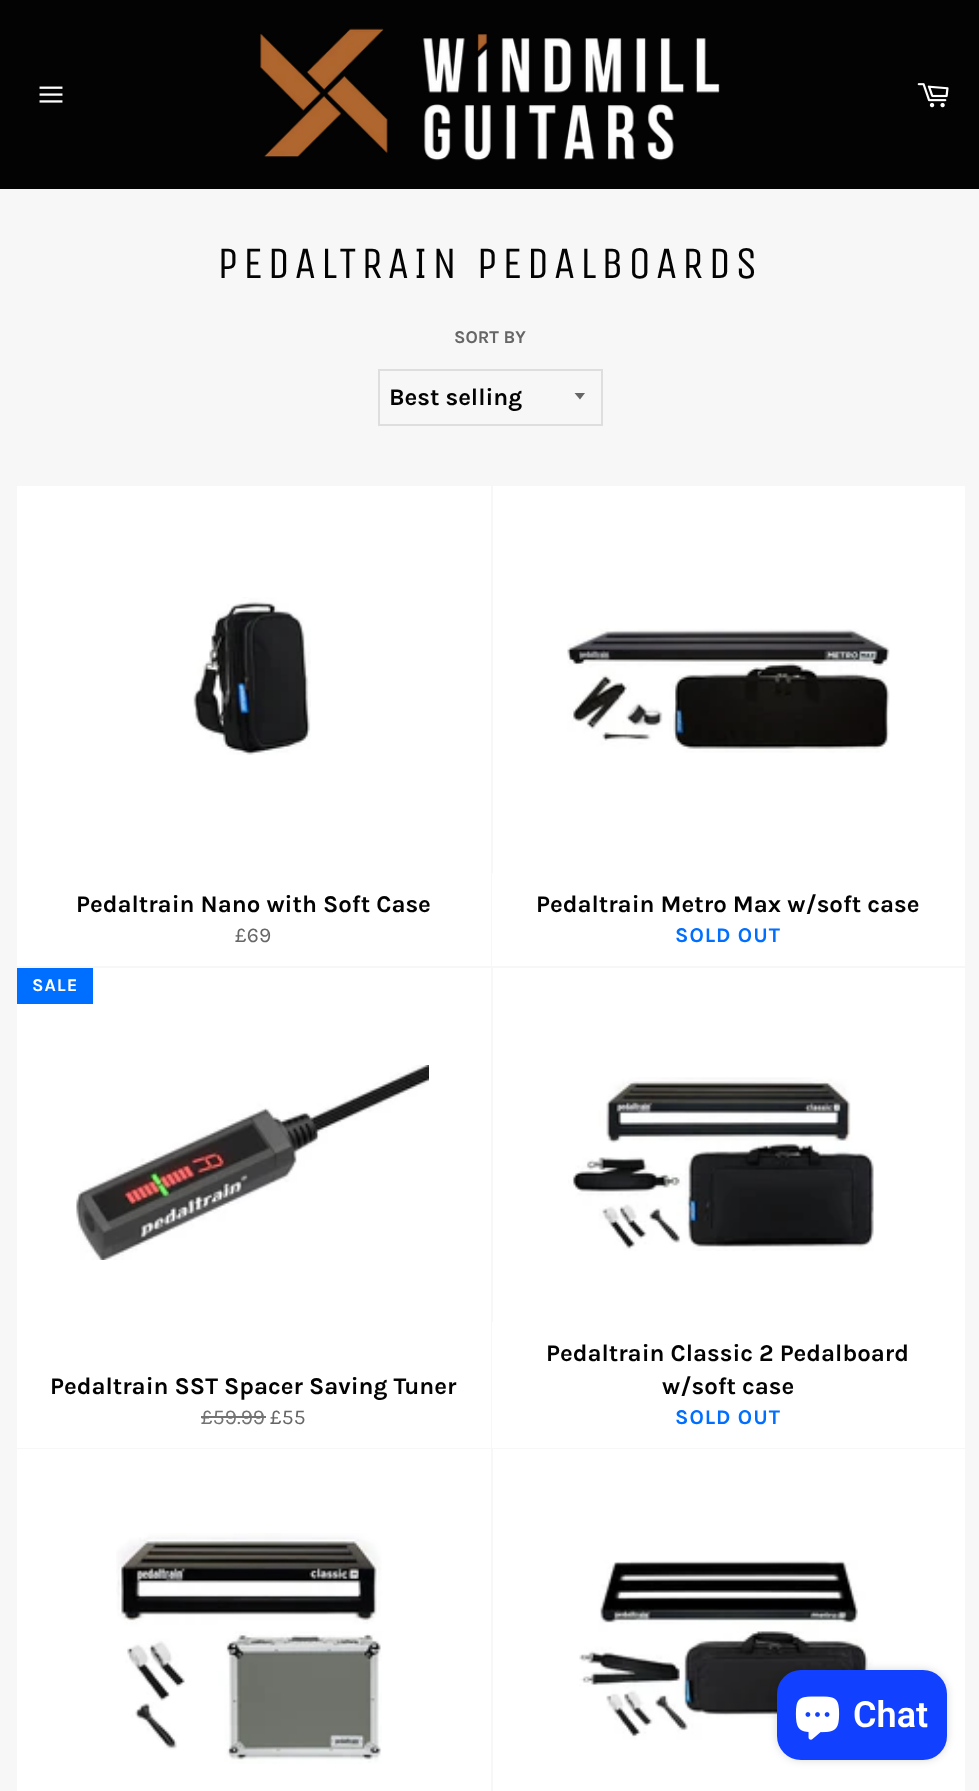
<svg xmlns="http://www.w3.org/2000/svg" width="979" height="1791">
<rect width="100%" height="100%" fill="#f7f7f7"/>
<rect width="979" height="189" fill="#030303"/>
<image x="39" y="86" width="24" height="17" href="media/1.png"/>
<image x="260" y="28" width="460" height="133" href="media/2.png"/>
<image x="917" y="83" width="32" height="25" href="media/3.png"/>
<text x="217" y="278" style="font-family:Unica One;font-size:45px;letter-spacing:4.5px;fill:#030303">PEDALTRAIN PEDALBOARDS</text>
<text x="454" y="343" style="font-family:Karla;font-size:18px;font-weight:bold;fill:#666">SORT BY</text>
<path d="M574.5 393l5.5 6.5l5-6.5z" fill="#666"/>
<rect x="379" y="370" width="223" height="55" fill="none" stroke="#dedede" stroke-width="2"/>
<text x="389" y="405" style="font-family:Karla;font-size:24px;font-weight:bold;fill:#030303">Best selling</text>
<rect x="17" y="486" width="474" height="480" fill="#fff"/>
<image x="193" y="597" width="118" height="158" href="media/4.png"/>
<text x="76" y="912" style="font-family:Karla;font-size:24px;font-weight:bold;fill:#030303">Pedaltrain Nano with Soft Case</text>
<text x="235" y="942" style="font-family:Karla;font-size:21px;fill:#666">£69</text>
<rect x="493" y="486" width="472" height="387" fill="#fff"/>
<image x="567" y="628" width="323" height="125" href="media/5.png"/>
<rect x="492" y="873" width="473" height="93" fill="#fff"/>
<text x="536" y="912" style="font-family:Karla;font-size:24px;font-weight:bold;fill:#030303">Pedaltrain Metro Max w/soft case</text>
<text x="675" y="942" style="font-family:Karla;font-size:21px;font-weight:bold;letter-spacing:1px;fill:#006eff">SOLD OUT</text>
<rect x="17" y="968" width="474" height="480" fill="#fff"/>
<rect x="17" y="968" width="76" height="36" fill="#006eff"/>
<text x="32" y="991" style="font-family:Karla;font-size:18px;font-weight:bold;letter-spacing:1px;fill:#fff">SALE</text>
<image x="76" y="1065" width="353" height="195" href="media/6.png"/>
<text x="50" y="1394" style="font-family:Karla;font-size:24px;font-weight:bold;fill:#030303">Pedaltrain SST Spacer Saving Tuner</text>
<text x="201" y="1424" style="font-family:Karla;font-size:21px;fill:#737373">£59.99</text>
<rect x="201" y="1416" width="65" height="2" fill="#737373"/>
<text x="270" y="1424" style="font-family:Karla;font-size:21px;fill:#666">£55</text>
<rect x="493" y="968" width="472" height="354" fill="#fff"/>
<image x="568" y="1077" width="306" height="174" href="media/7.png"/>
<rect x="492" y="1322" width="473" height="126" fill="#fff"/>
<text x="546" y="1361" style="font-family:Karla;font-size:24px;font-weight:bold;fill:#030303">Pedaltrain Classic 2 Pedalboard</text>
<text x="662" y="1394" style="font-family:Karla;font-size:24px;font-weight:bold;fill:#030303">w/soft case</text>
<text x="675" y="1424" style="font-family:Karla;font-size:21px;font-weight:bold;letter-spacing:1px;fill:#006eff">SOLD OUT</text>
<rect x="17" y="1449" width="474" height="342" fill="#fff"/>
<image x="116" y="1533" width="266" height="231" href="media/8.png"/>
<rect x="493" y="1449" width="472" height="342" fill="#fff"/>
<image x="579" y="1560" width="294" height="180" href="media/9.png"/>
<rect x="777" y="1670" width="170" height="90" rx="24" fill="#00000026" filter="blur(4px)"/>
<rect x="777" y="1670" width="170" height="90" rx="24" fill="#1240ff"/>
<image x="795" y="1696" width="45" height="44" href="media/10.png"/>
<text x="853" y="1727" style="font-family:Roboto;font-size:36px;font-weight:600;fill:#fff">Chat</text>
</svg>
